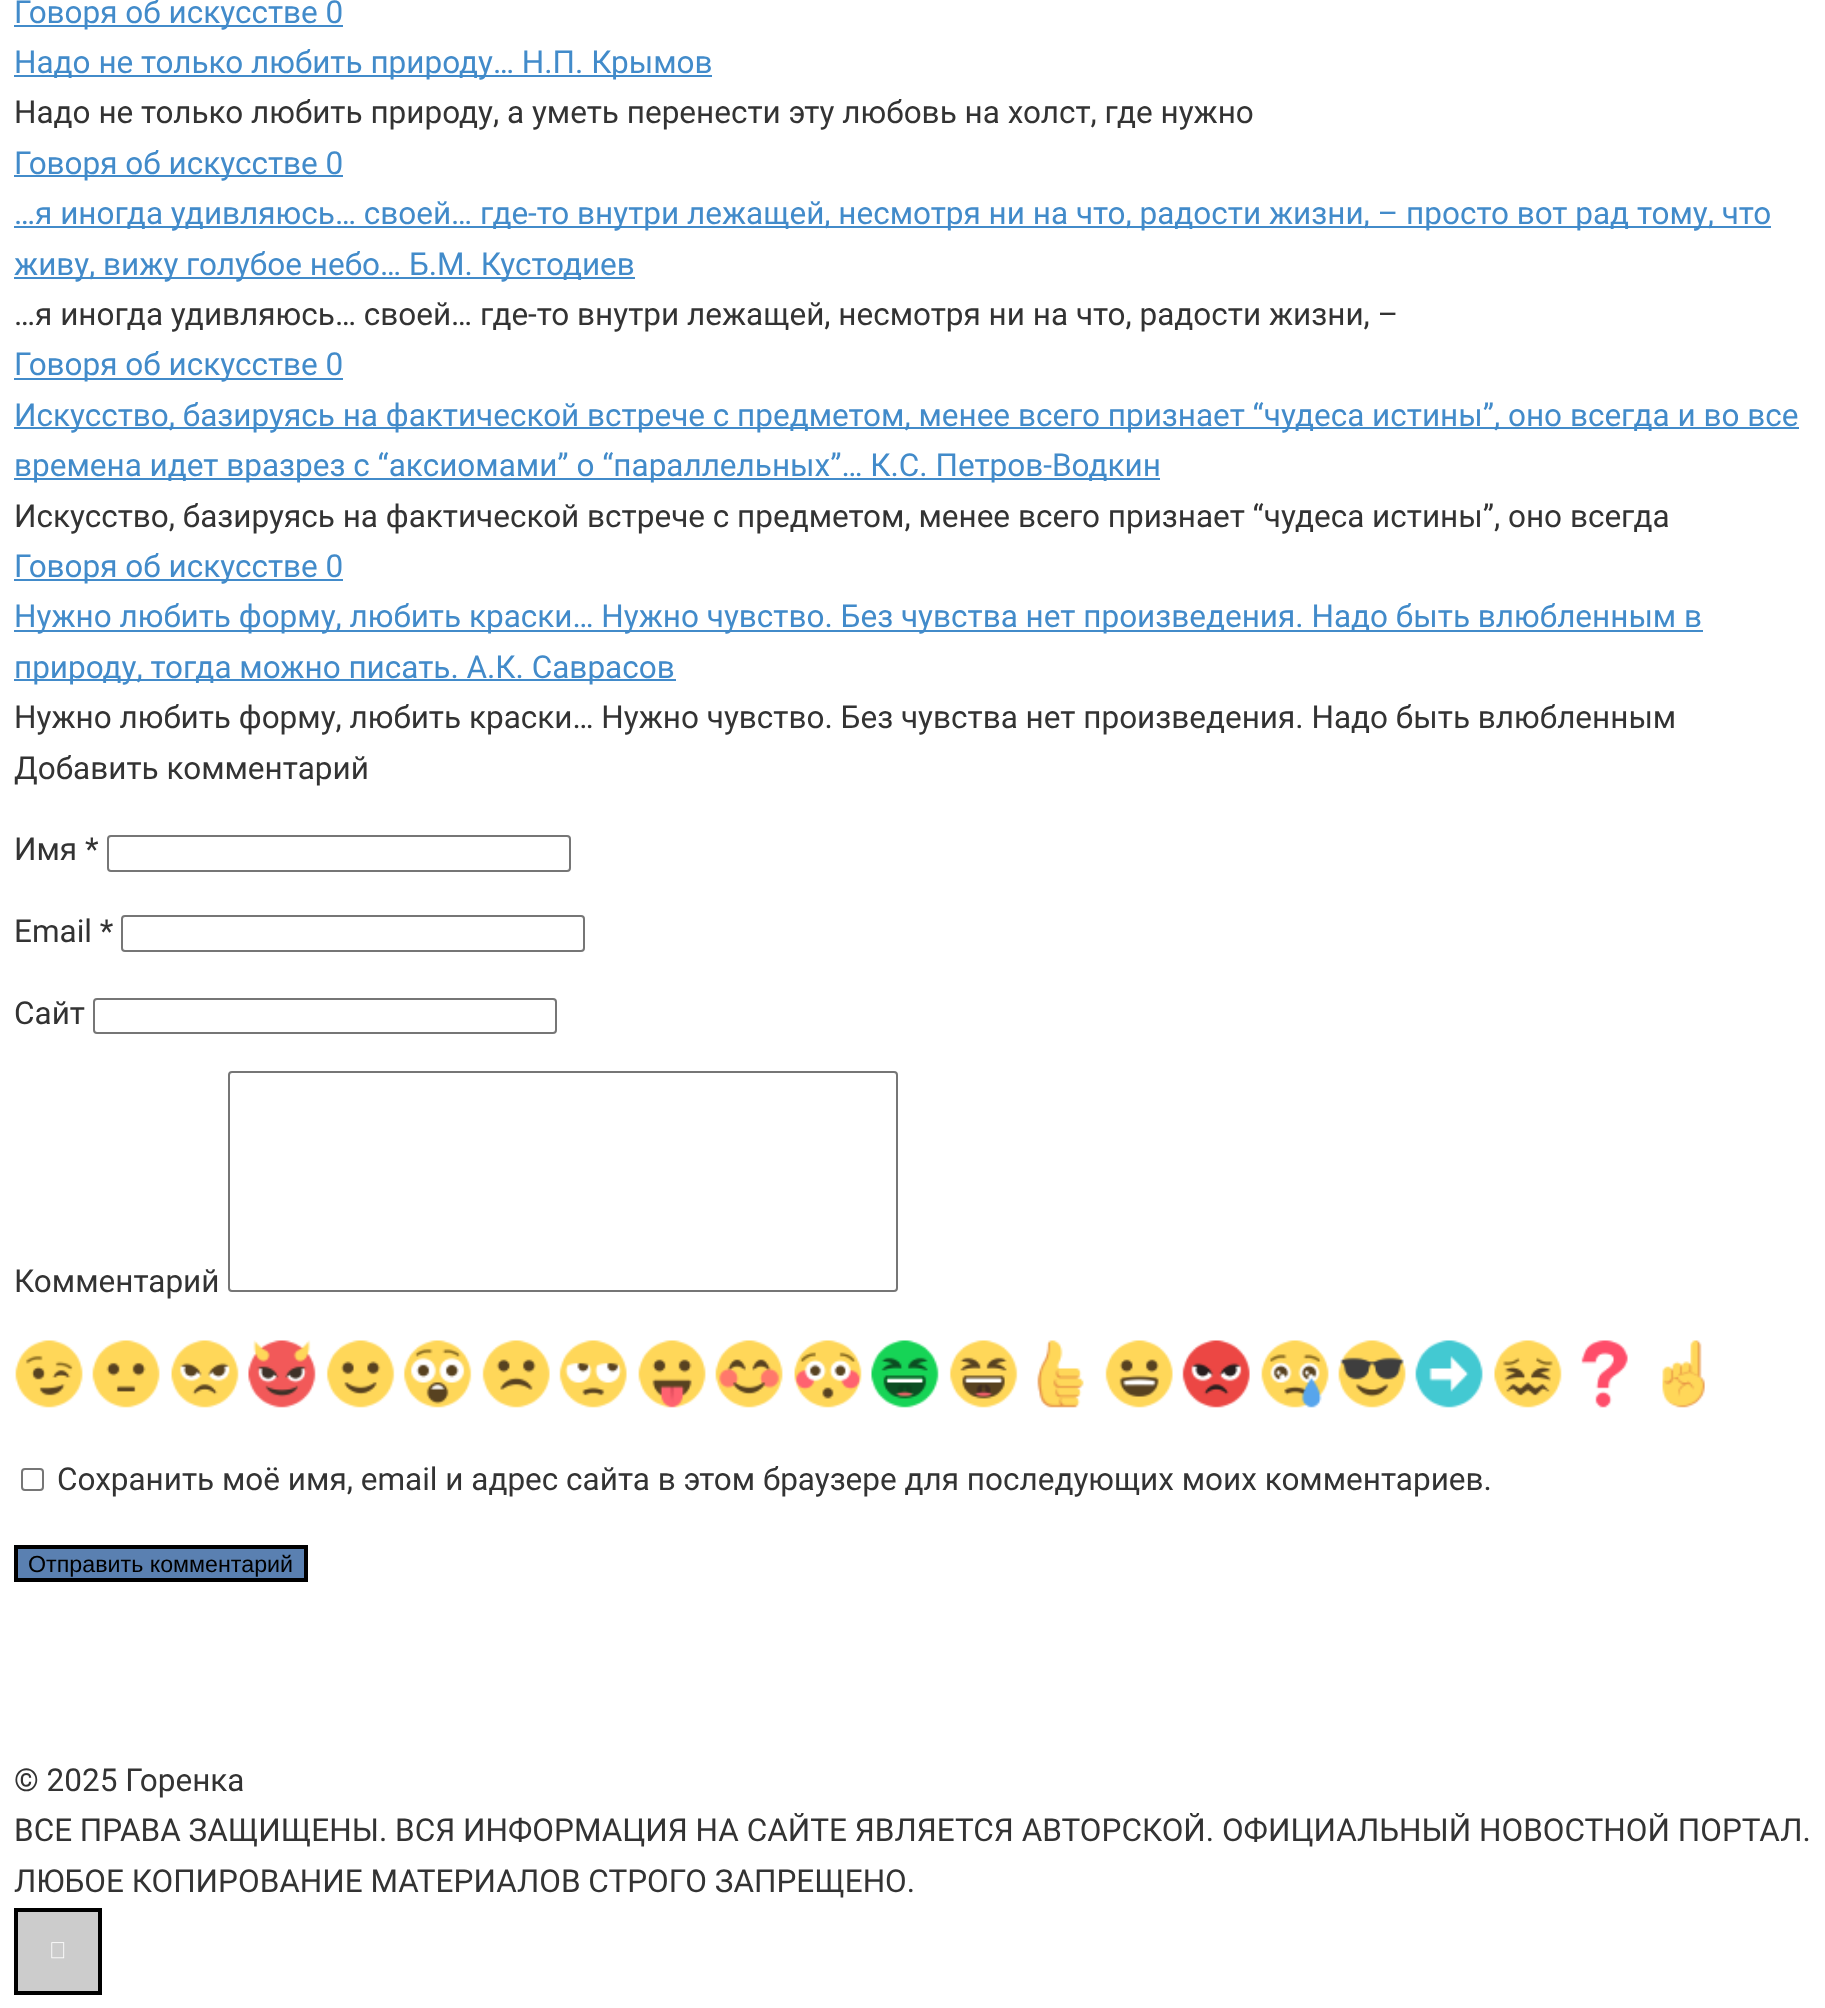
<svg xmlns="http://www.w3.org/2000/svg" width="1825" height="2008">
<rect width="100%" height="100%" fill="#fff"/>
<rect x="14" y="25" width="329" height="2" fill="#428bca"/>
<text x="14" y="23" style="font-family:Roboto;font-size:31.5px;fill:#428bca">Говоря об искусстве 0</text>
<rect x="14" y="75" width="698" height="2" fill="#428bca"/>
<text x="14" y="73" style="font-family:Roboto;font-size:31.5px;fill:#428bca">Надо не только любить природу… Н.П. Крымов</text>
<text x="14" y="123" style="font-family:Roboto;font-size:31.5px;fill:#333">Надо не только любить природу, а уметь перенести эту любовь на холст, где нужно</text>
<rect x="14" y="175" width="329" height="2" fill="#428bca"/>
<text x="14" y="174" style="font-family:Roboto;font-size:31.5px;fill:#428bca">Говоря об искусстве 0</text>
<rect x="14" y="226" width="1757" height="2" fill="#428bca"/>
<text x="14" y="224" style="font-family:Roboto;font-size:31.5px;fill:#428bca">…я иногда удивляюсь… своей… где-то внутри лежащей, несмотря ни на что, радости жизни, – просто вот рад тому, что</text>
<rect x="14" y="277" width="621" height="2" fill="#428bca"/>
<text x="14" y="275" style="font-family:Roboto;font-size:31.5px;fill:#428bca">живу, вижу голубое небо… Б.М. Кустодиев</text>
<text x="14" y="325" style="font-family:Roboto;font-size:31.5px;fill:#333">…я иногда удивляюсь… своей… где-то внутри лежащей, несмотря ни на что, радости жизни, –</text>
<rect x="14" y="378" width="329" height="2" fill="#428bca"/>
<text x="14" y="375" style="font-family:Roboto;font-size:31.5px;fill:#428bca">Говоря об искусстве 0</text>
<rect x="14" y="427" width="1785" height="2" fill="#428bca"/>
<text x="14" y="426" style="font-family:Roboto;font-size:31.5px;fill:#428bca">Искусство, базируясь на фактической встрече с предметом, менее всего признает “чудеса истины”, оно всегда и во все</text>
<rect x="14" y="478" width="1146" height="2" fill="#428bca"/>
<text x="14" y="476" style="font-family:Roboto;font-size:31.5px;fill:#428bca">времена идет вразрез с “аксиомами” о “параллельных”… К.С. Петров-Водкин</text>
<text x="14" y="527" style="font-family:Roboto;font-size:31.5px;fill:#333">Искусство, базируясь на фактической встрече с предметом, менее всего признает “чудеса истины”, оно всегда</text>
<rect x="14" y="579" width="329" height="2" fill="#428bca"/>
<text x="14" y="577" style="font-family:Roboto;font-size:31.5px;fill:#428bca">Говоря об искусстве 0</text>
<rect x="14" y="630" width="1689" height="2" fill="#428bca"/>
<text x="14" y="627" style="font-family:Roboto;font-size:31.5px;fill:#428bca">Нужно любить форму, любить краски… Нужно чувство. Без чувства нет произведения. Надо быть влюбленным в</text>
<rect x="14" y="679" width="662" height="2" fill="#428bca"/>
<text x="14" y="678" style="font-family:Roboto;font-size:31.5px;fill:#428bca">природу, тогда можно писать. А.К. Саврасов</text>
<text x="14" y="728" style="font-family:Roboto;font-size:31.5px;fill:#333">Нужно любить форму, любить краски… Нужно чувство. Без чувства нет произведения. Надо быть влюбленным</text>
<text x="14" y="779" style="font-family:Roboto;font-size:31.5px;fill:#333">Добавить комментарий</text>
<text x="14" y="860" style="font-family:Roboto;font-size:31.5px;fill:#333">Имя *</text>
<rect x="108" y="836" width="462" height="35" rx="3" fill="none" stroke="#767676" stroke-width="2"/>
<text x="14" y="942" style="font-family:Roboto;font-size:31.5px;fill:#333">Email *</text>
<rect x="122" y="916" width="462" height="35" rx="3" fill="none" stroke="#767676" stroke-width="2"/>
<text x="14" y="1024" style="font-family:Roboto;font-size:31.5px;fill:#333">Сайт</text>
<rect x="94" y="999" width="462" height="34" rx="3" fill="none" stroke="#767676" stroke-width="2"/>
<text x="14" y="1292" style="font-family:Roboto;font-size:31.5px;fill:#333">Комментарий</text>
<rect x="229" y="1072" width="668" height="219" rx="3" fill="none" stroke="#767676" stroke-width="2"/>
<image x="15" y="1340" width="68" height="68" href="media/1.png"/>
<image x="92" y="1340" width="68" height="68" href="media/2.png"/>
<image x="171" y="1340" width="68" height="68" href="media/3.png"/>
<image x="248" y="1340" width="68" height="68" href="media/4.png"/>
<image x="326" y="1340" width="69" height="68" href="media/5.png"/>
<image x="403" y="1340" width="69" height="68" href="media/6.png"/>
<image x="482" y="1340" width="68" height="68" href="media/7.png"/>
<image x="559" y="1340" width="68" height="68" href="media/8.png"/>
<image x="638" y="1340" width="68" height="68" href="media/9.png"/>
<image x="715" y="1340" width="68" height="68" href="media/10.png"/>
<image x="794" y="1340" width="68" height="68" href="media/11.png"/>
<image x="871" y="1340" width="68" height="68" href="media/12.png"/>
<image x="949" y="1340" width="69" height="68" href="media/13.png"/>
<image x="1037" y="1340" width="47" height="68" href="media/14.png"/>
<image x="1105" y="1340" width="68" height="68" href="media/15.png"/>
<image x="1182" y="1340" width="68" height="68" href="media/16.png"/>
<image x="1261" y="1340" width="68" height="68" href="media/17.png"/>
<image x="1338" y="1340" width="68" height="68" href="media/18.png"/>
<image x="1415" y="1340" width="68" height="68" href="media/19.png"/>
<image x="1494" y="1340" width="68" height="68" href="media/20.png"/>
<image x="1581" y="1340" width="47" height="68" href="media/21.png"/>
<image x="1662" y="1340" width="43" height="68" href="media/22.png"/>
<rect x="22" y="1469" width="21" height="21" rx="3" fill="none" stroke="#767676" stroke-width="2"/>
<text x="57" y="1490" style="font-family:Roboto;font-size:31.5px;fill:#333">Сохранить моё имя, email и адрес сайта в этом браузере для последующих моих комментариев.</text>
<rect x="16" y="1547" width="290" height="33" fill="#5a80b1" stroke="#000" stroke-width="4"/>
<text x="28" y="1572" style="font-family:Liberation Sans;font-size:23.25px;fill:#000">Отправить комментарий</text>
<text x="14" y="1791" style="font-family:Roboto;font-size:31.5px;fill:#333">© 2025 Горенка</text>
<text x="14" y="1841" style="font-family:Roboto;font-size:31.5px;fill:#333">ВСЕ ПРАВА ЗАЩИЩЕНЫ. ВСЯ ИНФОРМАЦИЯ НА САЙТЕ ЯВЛЯЕТСЯ АВТОРСКОЙ. ОФИЦИАЛЬНЫЙ НОВОСТНОЙ ПОРТАЛ.</text>
<text x="14" y="1892" style="font-family:Roboto;font-size:31.5px;fill:#333">ЛЮБОЕ КОПИРОВАНИЕ МАТЕРИАЛОВ СТРОГО ЗАПРЕЩЕНО.</text>
<rect x="16" y="1910" width="84" height="83" fill="#ccc" stroke="#000" stroke-width="4"/>
<image x="51" y="1942" width="14" height="17" href="media/23.png"/>
</svg>
